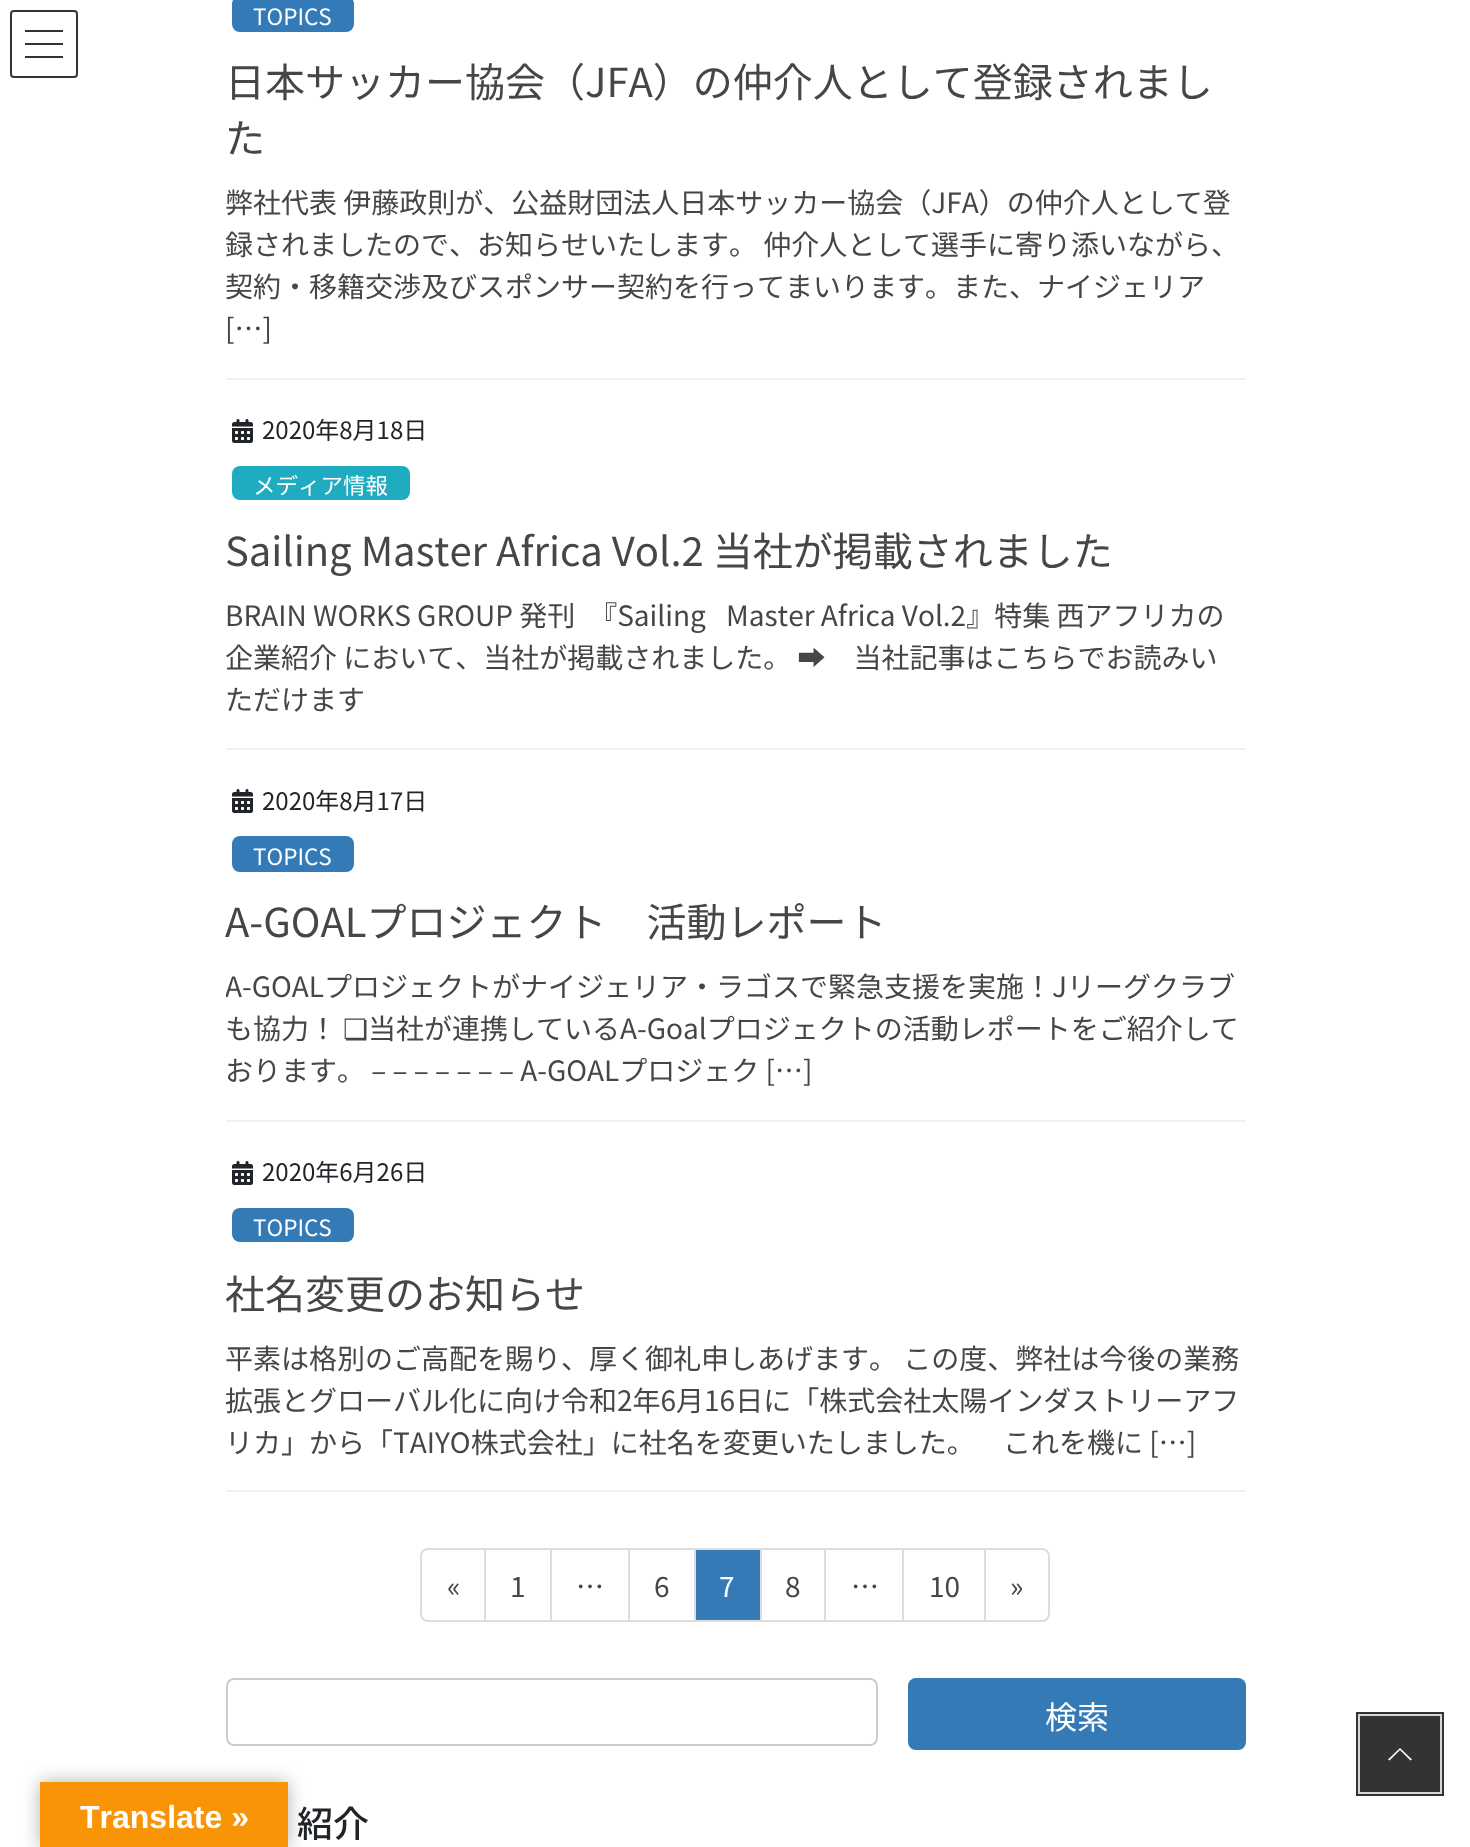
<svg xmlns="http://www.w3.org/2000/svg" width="1470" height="1847">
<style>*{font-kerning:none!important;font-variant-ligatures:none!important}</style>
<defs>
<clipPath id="clip1"><rect x="226" y="966" width="1020" height="126"/></clipPath>
<clipPath id="clip2"><rect x="486" y="1548" width="66" height="74"/></clipPath>
<clipPath id="clip3"><rect x="552" y="1548" width="78" height="74"/></clipPath>
<clipPath id="clip4"><rect x="630" y="1548" width="66" height="74"/></clipPath>
<clipPath id="clip5"><rect x="696" y="1548" width="66" height="74"/></clipPath>
<clipPath id="clip6"><rect x="762" y="1548" width="64" height="74"/></clipPath>
<clipPath id="clip7"><rect x="826" y="1548" width="78" height="74"/></clipPath>
<clipPath id="clip8"><rect x="904" y="1548" width="82" height="74"/></clipPath>
<clipPath id="clip9"><rect x="986" y="1548" width="64" height="74"/></clipPath>
</defs>
<rect width="100%" height="100%" fill="#fff"/>
<rect x="25" y="30" width="38" height="2" fill="#333"/>
<rect x="25" y="43" width="38" height="2" fill="#333"/>
<rect x="25" y="56" width="38" height="2" fill="#333"/>
<rect x="11" y="11" width="66" height="66" rx="3" fill="none" stroke="#333" stroke-width="2"/>
<rect x="226" y="378" width="1020" height="2" fill="#f2f2f2"/>
<rect x="232" y="-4" width="122" height="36" rx="8" fill="#337ab7"/>
<text x="253" y="25" style="font-family:Noto Sans JP;font-size:22.5px;fill:#fff">TOPICS</text>
<text x="225" y="97" style="font-family:Noto Sans JP;font-size:40px;fill:#464646">日本サッカー協会（JFA）の仲介人として登録されまし</text>
<text x="225" y="153" style="font-family:Noto Sans JP;font-size:40px;fill:#464646">た</text>
<text x="225" y="213" style="font-family:Noto Sans JP;font-size:28px;fill:#464646">弊社代表 伊藤政則が、公益財団法人日本サッカー協会（JFA）の仲介人として登</text>
<text x="225" y="255" style="font-family:Noto Sans JP;font-size:28px;fill:#464646">録されましたので、お知らせいたします。 仲介人とし</text>
<text x="903" y="255" style="font-family:Noto Sans JP;font-size:28px;fill:#464646">て選手に寄り添いながら、</text>
<text x="225" y="297" style="font-family:Noto Sans JP;font-size:28px;fill:#464646">契約・移籍交渉及びスポンサー契約を行ってまいります</text>
<text x="925" y="297" style="font-family:Noto Sans JP;font-size:28px;fill:#464646">。また、ナイジェリア</text>
<text x="225" y="339" style="font-family:Noto Sans JP;font-size:28px;fill:#464646">[…]</text>
<rect x="226" y="748" width="1020" height="2" fill="#f2f2f2"/>
<image x="232" y="419" width="21" height="24" href="media/1.png"/>
<text x="262" y="439" style="font-family:Noto Sans JP;font-size:24px;fill:#212529">2020年8月18日</text>
<rect x="232" y="466" width="178" height="34" rx="8" fill="#1facc1"/>
<text x="253" y="494" style="font-family:Noto Sans JP;font-size:22.5px;fill:#fff">メディア情報</text>
<text x="225" y="566" style="font-family:Noto Sans JP;font-size:40px;fill:#464646">Sailing Master Africa Vol.2 当社が掲載されました</text>
<text x="225" y="626" style="font-family:Noto Sans JP;font-size:28px;fill:#464646">BRAIN WORKS GROUP 発刊　『Sailing</text>
<text x="726" y="626" style="font-family:Noto Sans JP;font-size:28px;fill:#464646">Master Africa Vol.2』特集 西アフリカの</text>
<text x="225" y="668" style="font-family:Noto Sans JP;font-size:28px;fill:#464646">企業紹介 において、当社が掲載されました。 ➡　当社記事はこちらでお読みい</text>
<text x="225" y="710" style="font-family:Noto Sans JP;font-size:28px;fill:#464646">ただけます</text>
<rect x="226" y="1120" width="1020" height="2" fill="#f2f2f2"/>
<image x="232" y="789" width="21" height="24" href="media/1.png"/>
<text x="262" y="810" style="font-family:Noto Sans JP;font-size:24px;fill:#212529">2020年8月17日</text>
<rect x="232" y="836" width="122" height="36" rx="8" fill="#337ab7"/>
<text x="253" y="865" style="font-family:Noto Sans JP;font-size:22.5px;fill:#fff">TOPICS</text>
<text x="225" y="937" style="font-family:Noto Sans JP;font-size:40px;fill:#464646">A-GOALプロジェクト　活動レポート</text>
<g clip-path="url(#clip1)">
<text x="225" y="997" style="font-family:Noto Sans JP;font-size:28px;fill:#464646">A-GOALプロジェクトがナイジェリア・ラゴスで緊急支援を実施！Jリーグクラブ</text>
</g>
<text x="225" y="1039" style="font-family:Noto Sans JP;font-size:28px;fill:#464646">も協力！</text>
<text x="343" y="1039" style="font-family:DejaVu Sans;font-size:28px;fill:#464646">❏</text>
<text x="368" y="1039" style="font-family:Noto Sans JP;font-size:28px;fill:#464646">当社が連携しているA-Goalプロジェクトの活動レポートをご紹介して</text>
<text x="225" y="1081" style="font-family:Noto Sans JP;font-size:28px;fill:#464646">おります。 – – – – – – – A-GOALプロジェク […]</text>
<rect x="226" y="1490" width="1020" height="2" fill="#f2f2f2"/>
<image x="232" y="1161" width="21" height="24" href="media/1.png"/>
<text x="262" y="1181" style="font-family:Noto Sans JP;font-size:24px;fill:#212529">2020年6月26日</text>
<rect x="232" y="1208" width="122" height="34" rx="8" fill="#337ab7"/>
<text x="253" y="1236" style="font-family:Noto Sans JP;font-size:22.5px;fill:#fff">TOPICS</text>
<text x="225" y="1309" style="font-family:Noto Sans JP;font-size:40px;fill:#464646">社名変更のお知らせ</text>
<text x="225" y="1369" style="font-family:Noto Sans JP;font-size:28px;fill:#464646">平素は格別のご高配を賜り、厚く御礼申しあげます。 この度、弊社は今後の業務</text>
<text x="225" y="1411" style="font-family:Noto Sans JP;font-size:28px;fill:#464646">拡張とグローバル化に向け令和2年6月16日に「株式会社太陽インダストリーアフ</text>
<text x="225" y="1453" style="font-family:Noto Sans JP;font-size:28px;fill:#464646">リカ」から「TAIYO株式会社」に社名を変更いたしました。</text>
<text x="975" y="1453" style="font-family:Noto Sans JP;font-size:28px;fill:#464646">　これを機に […]</text>
<path d="M428 1549h57v72h-57c-4 0-7-3-7-7v-58c0-4 3-7 7-7z" fill="none" stroke="#ddd" stroke-width="2"/>
<text x="447" y="1597" style="font-family:Noto Sans JP;font-size:28px;fill:#464646">«</text>
<g clip-path="url(#clip2)">
<rect x="485" y="1549" width="66" height="72" fill="none" stroke="#ddd" stroke-width="2"/>
</g>
<text x="510" y="1597" style="font-family:Noto Sans JP;font-size:28px;fill:#464646">1</text>
<g clip-path="url(#clip3)">
<rect x="551" y="1549" width="78" height="72" fill="none" stroke="#ddd" stroke-width="2"/>
</g>
<text x="576" y="1597" style="font-family:Noto Sans JP;font-size:28px;fill:#464646">…</text>
<g clip-path="url(#clip4)">
<rect x="629" y="1549" width="66" height="72" fill="none" stroke="#ddd" stroke-width="2"/>
</g>
<text x="654" y="1597" style="font-family:Noto Sans JP;font-size:28px;fill:#464646">6</text>
<rect x="696" y="1550" width="64" height="70" fill="#337ab7"/>
<g clip-path="url(#clip5)">
<rect x="695" y="1549" width="66" height="72" fill="none" stroke="#ddd" stroke-width="2"/>
</g>
<text x="719" y="1597" style="font-family:Noto Sans JP;font-size:28px;fill:#fff">7</text>
<g clip-path="url(#clip6)">
<rect x="761" y="1549" width="64" height="72" fill="none" stroke="#ddd" stroke-width="2"/>
</g>
<text x="785" y="1597" style="font-family:Noto Sans JP;font-size:28px;fill:#464646">8</text>
<g clip-path="url(#clip7)">
<rect x="825" y="1549" width="78" height="72" fill="none" stroke="#ddd" stroke-width="2"/>
</g>
<text x="851" y="1597" style="font-family:Noto Sans JP;font-size:28px;fill:#464646">…</text>
<g clip-path="url(#clip8)">
<rect x="903" y="1549" width="82" height="72" fill="none" stroke="#ddd" stroke-width="2"/>
</g>
<text x="929" y="1597" style="font-family:Noto Sans JP;font-size:28px;fill:#464646">10</text>
<g clip-path="url(#clip9)">
<path d="M985 1549h57c4 0 7 3 7 7v58c0 4-3 7-7 7h-57z" fill="none" stroke="#ddd" stroke-width="2"/>
</g>
<text x="1010" y="1597" style="font-family:Noto Sans JP;font-size:28px;fill:#464646">»</text>
<rect x="227" y="1679" width="650" height="66" rx="7" fill="none" stroke="#ccc" stroke-width="2"/>
<rect x="908" y="1678" width="338" height="72" rx="8" fill="#337ab7"/>
<text x="1045" y="1729" style="font-family:Noto Sans JP;font-size:32px;fill:#fff">検索</text>
<text x="297" y="1837" style="font-family:Noto Sans JP;font-size:36px;font-weight:500;fill:#212529">紹介</text>
<rect x="1358" y="1714" width="84" height="80" fill="none" stroke="#333" stroke-width="4"/>
<rect x="1359" y="1715" width="82" height="78" fill="none" stroke="#d6d6d6" stroke-width="2"/>
<rect x="1360" y="1716" width="80" height="76" fill="#333"/>
<path d="M1412 1759.5l-1.5 1l-10.5-10.5l-10.5 10.5l-1.5-1l12-11.5z" fill="#fff"/>
<rect x="40" y="1782" width="248" height="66" fill="#0000004d" filter="blur(9px)"/>
<rect x="40" y="1782" width="248" height="65" fill="#f89406"/>
<text x="80" y="1828" style="font-family:Liberation Sans;font-size:32px;font-weight:bold;fill:#fff">Translate »</text>
</svg>
